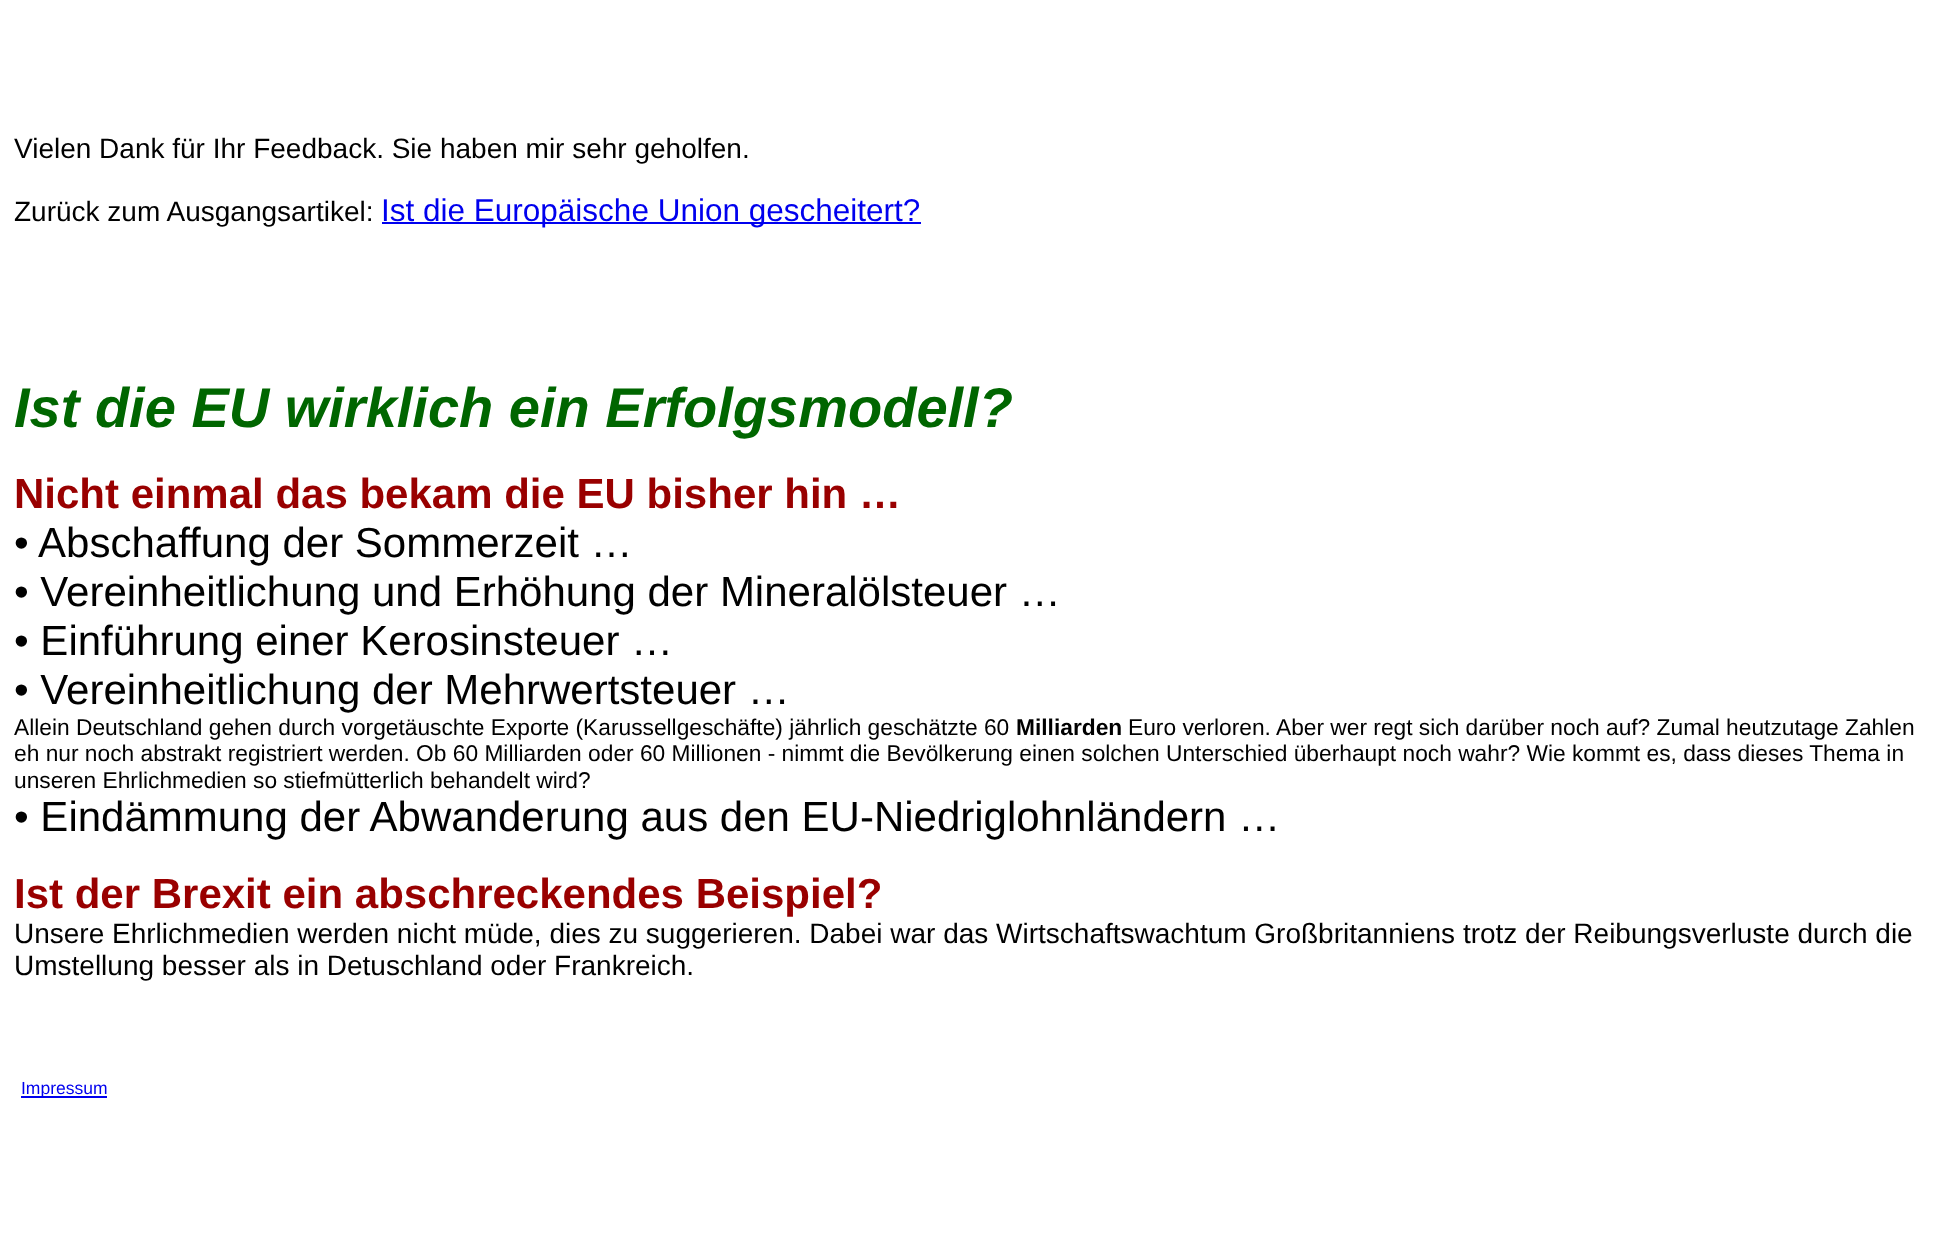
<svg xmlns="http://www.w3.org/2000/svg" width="1954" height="1260">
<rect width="100%" height="100%" fill="#fff"/>
<text x="14" y="158" style="font-family:Liberation Sans;font-size:28px;fill:#000">Vielen Dank für Ihr Feedback. Sie haben mir sehr geholfen.</text>
<text x="14" y="221" style="font-family:Liberation Sans;font-size:28px;fill:#000">Zurück zum Ausgangsartikel:</text>
<rect x="382" y="222" width="539" height="2" fill="#00e"/>
<text x="381" y="221" style="font-family:Liberation Sans;font-size:31.5px;fill:#00e">Ist die Europäische Union gescheitert?</text>
<text x="14" y="427" style="font-family:Liberation Sans;font-size:56px;font-weight:bold;font-style:italic;fill:#060">Ist die EU wirklich ein Erfolgsmodell?</text>
<text x="14" y="508" style="font-family:Liberation Sans;font-size:42px;font-weight:bold;fill:#900">Nicht einmal das bekam die EU bisher hin …</text>
<text x="14" y="557" style="font-family:Liberation Sans;font-size:42px;fill:#000">• Abschaffung der Sommerzeit …</text>
<text x="14" y="606" style="font-family:Liberation Sans;font-size:42px;fill:#000">• Vereinheitlichung und Erhöhung der Mineralölsteuer …</text>
<text x="14" y="655" style="font-family:Liberation Sans;font-size:42px;fill:#000">• Einführung einer Kerosinsteuer …</text>
<text x="14" y="704" style="font-family:Liberation Sans;font-size:42px;fill:#000">• Vereinheitlichung der Mehrwertsteuer …</text>
<text x="14" y="735" style="font-family:Liberation Sans;font-size:22.75px;fill:#000">Allein Deutschland gehen durch vorgetäuschte Exporte (Karussellgeschäfte) jährlich geschätzte 60</text>
<text x="1016" y="735" style="font-family:Liberation Sans;font-size:22.75px;font-weight:bold;fill:#000">Milliarden</text>
<text x="1128" y="735" style="font-family:Liberation Sans;font-size:22.75px;fill:#000">Euro verloren. Aber wer regt sich darüber noch auf? Zumal heutzutage Zahlen</text>
<text x="14" y="761" style="font-family:Liberation Sans;font-size:22.75px;fill:#000">eh nur noch abstrakt registriert werden. Ob 60 Milliarden oder 60 Millionen - nimmt die Bevölkerung einen solchen Unterschied überhaupt noch wahr? Wie kommt es, dass dieses Thema in</text>
<text x="14" y="788" style="font-family:Liberation Sans;font-size:22.75px;fill:#000">unseren Ehrlichmedien so stiefmütterlich behandelt wird?</text>
<text x="14" y="831" style="font-family:Liberation Sans;font-size:42px;fill:#000">• Eindämmung der Abwanderung aus den EU-Niedriglohnländern …</text>
<text x="14" y="908" style="font-family:Liberation Sans;font-size:42px;font-weight:bold;fill:#900">Ist der Brexit ein abschreckendes Beispiel?</text>
<text x="14" y="943" style="font-family:Liberation Sans;font-size:28px;fill:#000">Unsere Ehrlichmedien werden nicht müde, dies zu suggerieren. Dabei war das Wirtschaftswachtum Großbritanniens trotz der Reibungsverluste durch die</text>
<text x="14" y="975" style="font-family:Liberation Sans;font-size:28px;fill:#000">Umstellung besser als in Detuschland oder Frankreich.</text>
<rect x="21" y="1096" width="86" height="2" fill="#00e"/>
<text x="21" y="1094" style="font-family:Liberation Sans;font-size:17.5px;fill:#00e">Impressum</text>
</svg>
